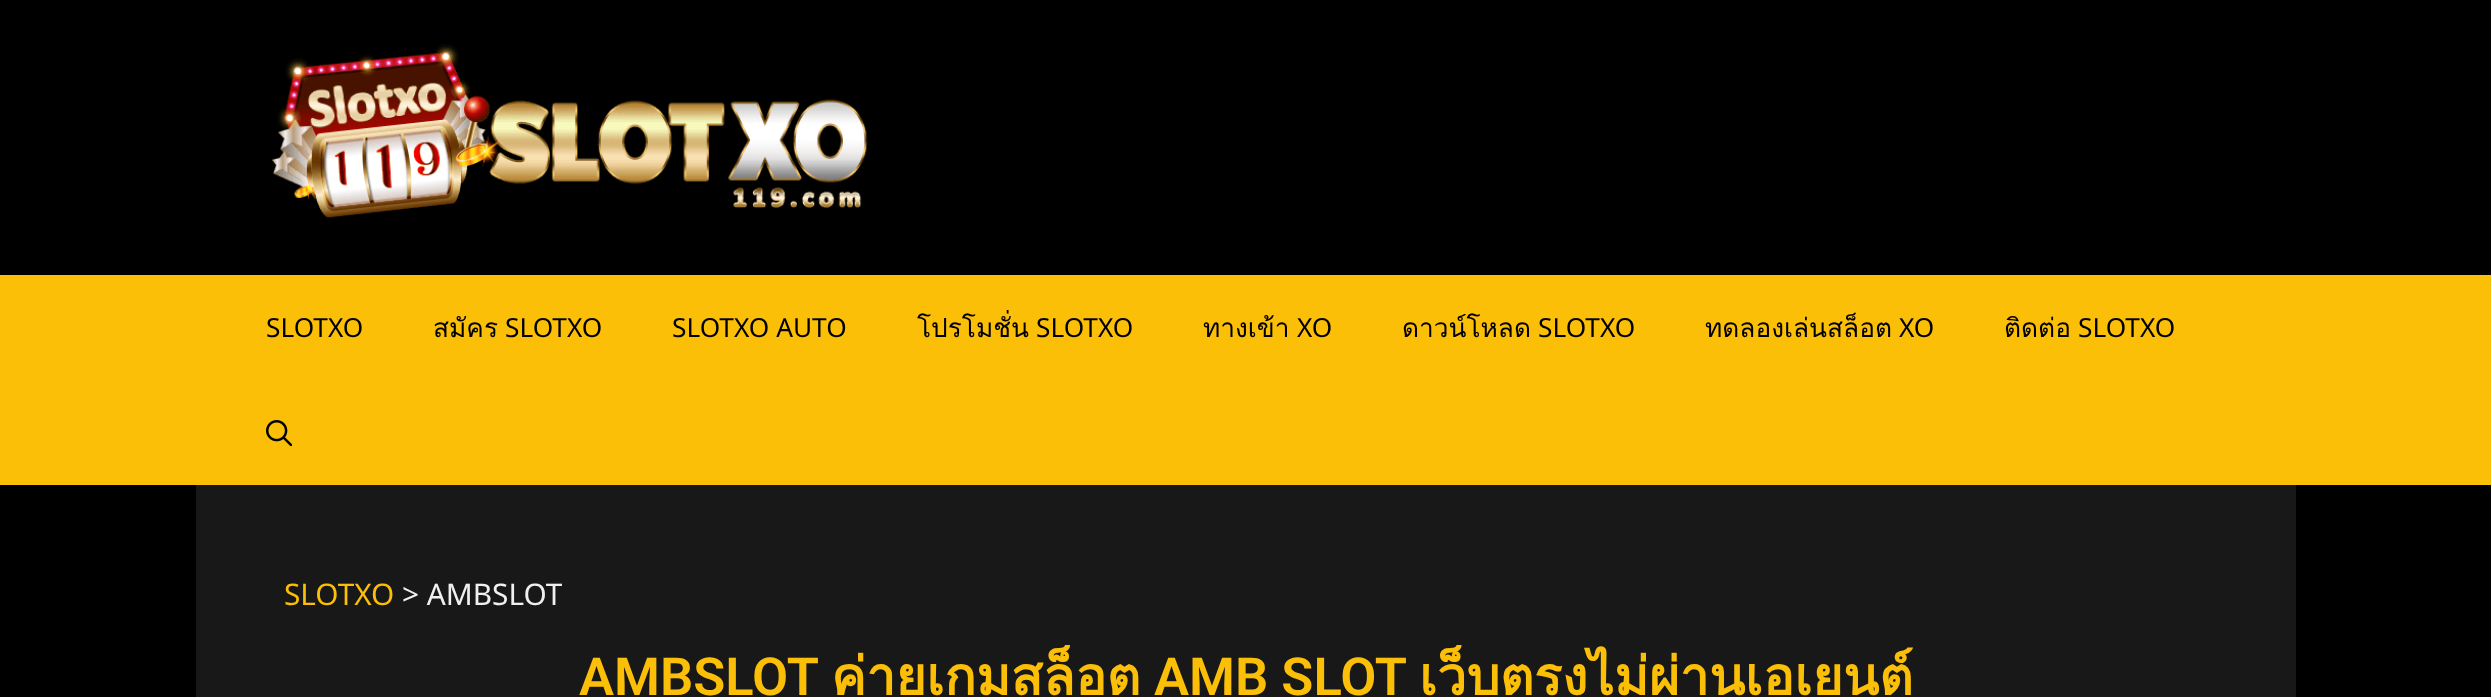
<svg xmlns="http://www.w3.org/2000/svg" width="2491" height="697">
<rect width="100%" height="100%" fill="#000"/>
<image x="272" y="44" width="596" height="174" href="media/1.png"/>
<rect y="275" width="2491" height="210" fill="#fcbf07"/>
<text x="266" y="337" style="font-family:Noto Sans;font-size:26.25px;fill:#000">SLOTXO</text>
<text x="433" y="337" style="font-family:Loma;font-size:26.25px;fill:#000">สมัคร</text>
<text x="505" y="337" style="font-family:Noto Sans;font-size:26.25px;fill:#000">SLOTXO</text>
<text x="672" y="337" style="font-family:Noto Sans;font-size:26.25px;fill:#000">SLOTXO AUTO</text>
<text x="917" y="337" style="font-family:Loma;font-size:26.25px;fill:#000">โปรโมชั่น</text>
<text x="1036" y="337" style="font-family:Noto Sans;font-size:26.25px;fill:#000">SLOTXO</text>
<text x="1203" y="337" style="font-family:Loma;font-size:26.25px;fill:#000">ทางเข้า</text>
<text x="1297" y="337" style="font-family:Noto Sans;font-size:26.25px;fill:#000">XO</text>
<text x="1402" y="337" style="font-family:Loma;font-size:26.25px;fill:#000">ดาวน์โหลด</text>
<text x="1538" y="337" style="font-family:Noto Sans;font-size:26.25px;fill:#000">SLOTXO</text>
<text x="1705" y="337" style="font-family:Loma;font-size:26.25px;fill:#000">ทดลองเล่นสล็อต</text>
<text x="1899" y="337" style="font-family:Noto Sans;font-size:26.25px;fill:#000">XO</text>
<text x="2004" y="337" style="font-family:Loma;font-size:26.25px;fill:#000">ติดต่อ</text>
<text x="2078" y="337" style="font-family:Noto Sans;font-size:26.25px;fill:#000">SLOTXO</text>
<image x="266" y="420" width="26" height="26" href="media/2.png"/>
<rect x="196" y="485" width="2100" height="212" fill="#181818"/>
<text x="284" y="605" style="font-family:Noto Sans;font-size:29.75px;fill:#fcbf07">SLOTXO</text>
<text x="402" y="605" style="font-family:Noto Sans;font-size:29.75px;fill:#f0f0f0">&gt; AMBSLOT</text>
<text x="579" y="695" style="font-family:Roboto;font-size:52.5px;font-weight:600;fill:#fcbf07">AMBSLOT</text>
<text x="831" y="695" style="font-family:Loma;font-size:52.5px;font-weight:bold;fill:#fcbf07">ค่ายเกมสล็อต</text>
<text x="1154" y="695" style="font-family:Roboto;font-size:52.5px;font-weight:600;fill:#fcbf07">AMB SLOT</text>
<text x="1419" y="695" style="font-family:Loma;font-size:52.5px;font-weight:bold;fill:#fcbf07">เว็บตรงไม่ผ่านเอเยนต์</text>
</svg>
